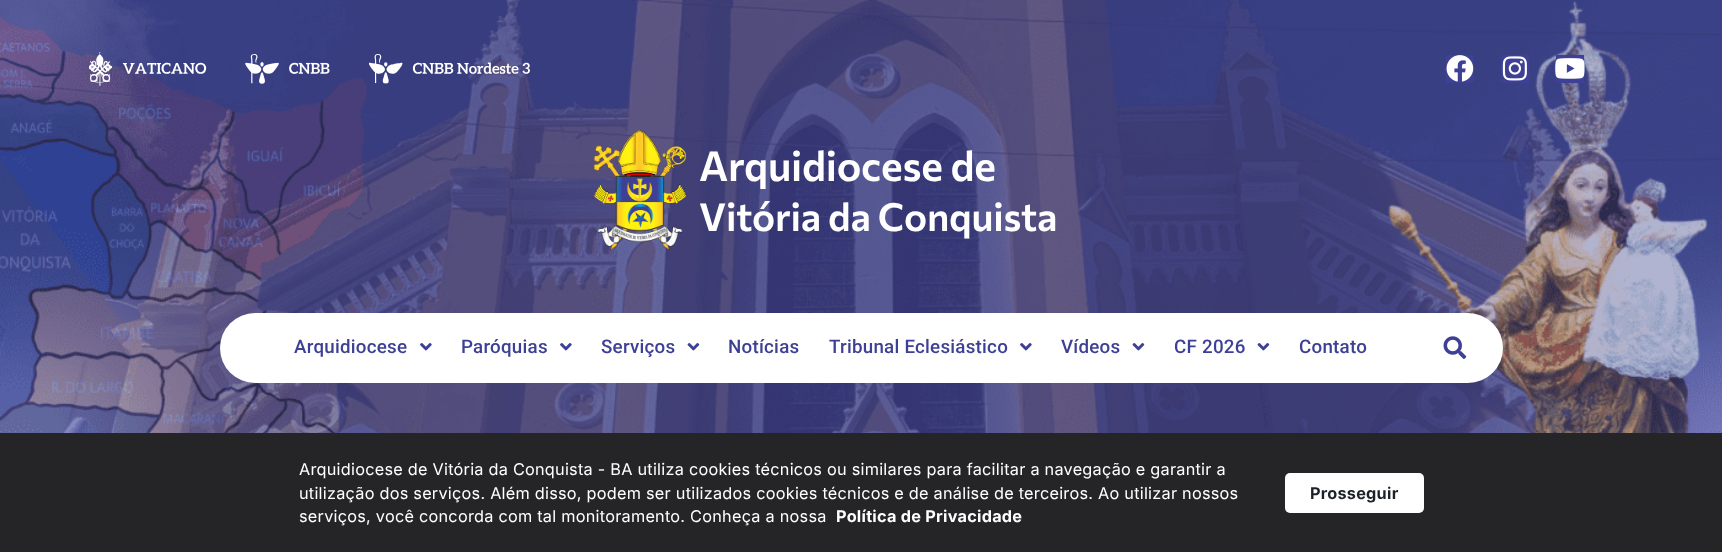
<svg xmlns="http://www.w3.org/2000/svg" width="1722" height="552">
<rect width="100%" height="100%" fill="#fff"/>
<image x="0" y="0" width="1722" height="433" href="media/1.png"/>
<image x="89" y="52" width="118" height="34" href="media/2.png"/>
<image x="245" y="54" width="85" height="30" href="media/3.png"/>
<image x="369" y="54" width="161" height="30" href="media/4.png"/>
<rect x="1446" y="55" width="28" height="28" fill="#3e4095"/>
<image x="1446" y="55" width="28" height="27" href="media/5.png"/>
<rect x="1501" y="55" width="28" height="28" fill="#3e4095"/>
<image x="1502" y="56" width="25" height="25" href="media/6.png"/>
<rect x="1556" y="55" width="28" height="28" fill="#3e4095"/>
<image x="1555" y="58" width="30" height="21" href="media/7.png"/>
<image x="593" y="130" width="94" height="120" href="media/8.png"/>
<text x="699" y="181" style="font-family:Commissioner;font-size:41.25px;font-weight:600;letter-spacing:-0.25px;fill:#fff">Arquidiocese de</text>
<text x="699" y="231" style="font-family:Commissioner;font-size:38.75px;font-weight:600;letter-spacing:-0.25px;fill:#fff">Vitória da Conquista</text>
<rect x="220" y="313" width="1283" height="70" rx="35" fill="#fff"/>
<text x="294" y="353" style="font-family:Roboto;font-size:18.75px;font-weight:500;letter-spacing:0.25px;fill:#3e4095">Arquidiocese</text>
<image x="420" y="343" width="12" height="8" href="media/9.png"/>
<text x="461" y="353" style="font-family:Roboto;font-size:18.75px;font-weight:500;letter-spacing:0.25px;fill:#3e4095">Paróquias</text>
<image x="560" y="343" width="12" height="8" href="media/9.png"/>
<text x="601" y="353" style="font-family:Roboto;font-size:18.75px;font-weight:500;letter-spacing:0.25px;fill:#3e4095">Serviços</text>
<image x="687" y="343" width="13" height="8" href="media/10.png"/>
<text x="728" y="353" style="font-family:Roboto;font-size:18.75px;font-weight:500;letter-spacing:0.25px;fill:#3e4095">Notícias</text>
<text x="829" y="353" style="font-family:Roboto;font-size:18.75px;font-weight:500;letter-spacing:0.25px;fill:#3e4095">Tribunal Eclesiástico</text>
<image x="1020" y="343" width="12" height="8" href="media/9.png"/>
<text x="1061" y="353" style="font-family:Roboto;font-size:18.75px;font-weight:500;letter-spacing:0.25px;fill:#3e4095">Vídeos</text>
<image x="1132" y="343" width="13" height="8" href="media/10.png"/>
<text x="1174" y="353" style="font-family:Roboto;font-size:18.75px;font-weight:500;letter-spacing:0.25px;fill:#3e4095">CF 2026</text>
<image x="1257" y="343" width="13" height="8" href="media/10.png"/>
<text x="1299" y="353" style="font-family:Roboto;font-size:18.75px;font-weight:500;letter-spacing:0.25px;fill:#3e4095">Contato</text>
<image x="1443" y="336" width="24" height="23" href="media/11.png"/>
<rect y="433" width="1722" height="119" fill="#252528"/>
<text x="299" y="475" style="font-family:Inter;font-size:16.25px;letter-spacing:0.25px;fill:#fff">Arquidiocese de Vitória da Conquista - BA utiliza cookies técnicos ou similares para facilitar a navegação e garantir a</text>
<text x="299" y="499" style="font-family:Inter;font-size:16.25px;letter-spacing:0.25px;fill:#fff">utilização dos serviços. Além disso, podem ser utilizados cookies técnicos e de análise de terceiros. Ao utilizar nossos</text>
<text x="299" y="522" style="font-family:Inter;font-size:16.25px;letter-spacing:0.25px;fill:#fff">serviços, você concorda com tal monitoramento. Conheça a nossa</text>
<text x="836" y="522" style="font-family:Inter;font-size:16.25px;font-weight:bold;letter-spacing:0.25px;fill:#fff">Política de Privacidade</text>
<rect x="1285" y="473" width="139" height="40" rx="5" fill="#fff"/>
<text x="1310" y="499" style="font-family:Inter;font-size:16.25px;font-weight:bold;letter-spacing:0.25px;fill:#1d2129">Prosseguir</text>
</svg>
